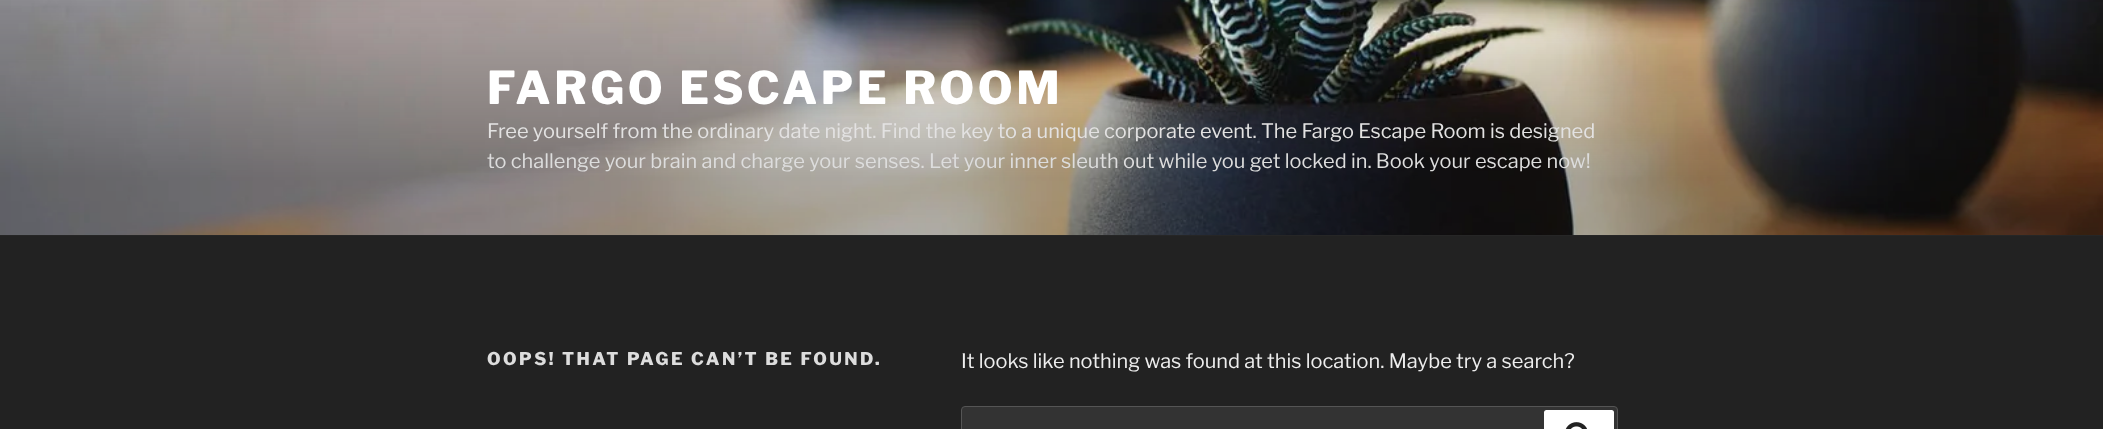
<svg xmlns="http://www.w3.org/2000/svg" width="2103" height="429">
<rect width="100%" height="100%" fill="#222"/>
<rect y="235" width="2103" height="1" fill="#262626"/>
<image x="0" y="0" width="2103" height="235" href="media/1.png"/>
<text x="487" y="104" style="font-family:Libre Franklin;font-size:45px;font-weight:100;letter-spacing:3.6px;fill:#fff">FARGO ESCAPE ROOM</text>
<text x="487" y="138" style="font-family:'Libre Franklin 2';font-size:20px;font-weight:100;fill:#e3e2e2">Free yourself from the ordinary date night. Find the key to a unique corporate event. The Fargo Escape Room is designed</text>
<text x="487" y="168" style="font-family:'Libre Franklin 2';font-size:20px;font-weight:100;fill:#ddd">to challenge your brain and charge your senses. Let your inner sleuth out while you get locked in. Book your escape now!</text>
<text x="487" y="365" style="font-family:Libre Franklin;font-size:17.5px;font-weight:100;letter-spacing:2.45px;fill:#ddd">OOPS! THAT PAGE CAN’T BE FOUND.</text>
<text x="961" y="368" style="font-family:'Libre Franklin 2';font-size:20px;font-weight:100;fill:#eee">It looks like nothing was found at this location. Maybe try a search?</text>
<rect x="961.5" y="406.5" width="656" height="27" rx="3.5" fill="#333" stroke="#555"/>
<rect x="1544" y="410" width="70" height="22" rx="2.5" fill="#fff"/>
<image x="1565" y="422" width="22" height="7" href="media/2.png"/>
</svg>
